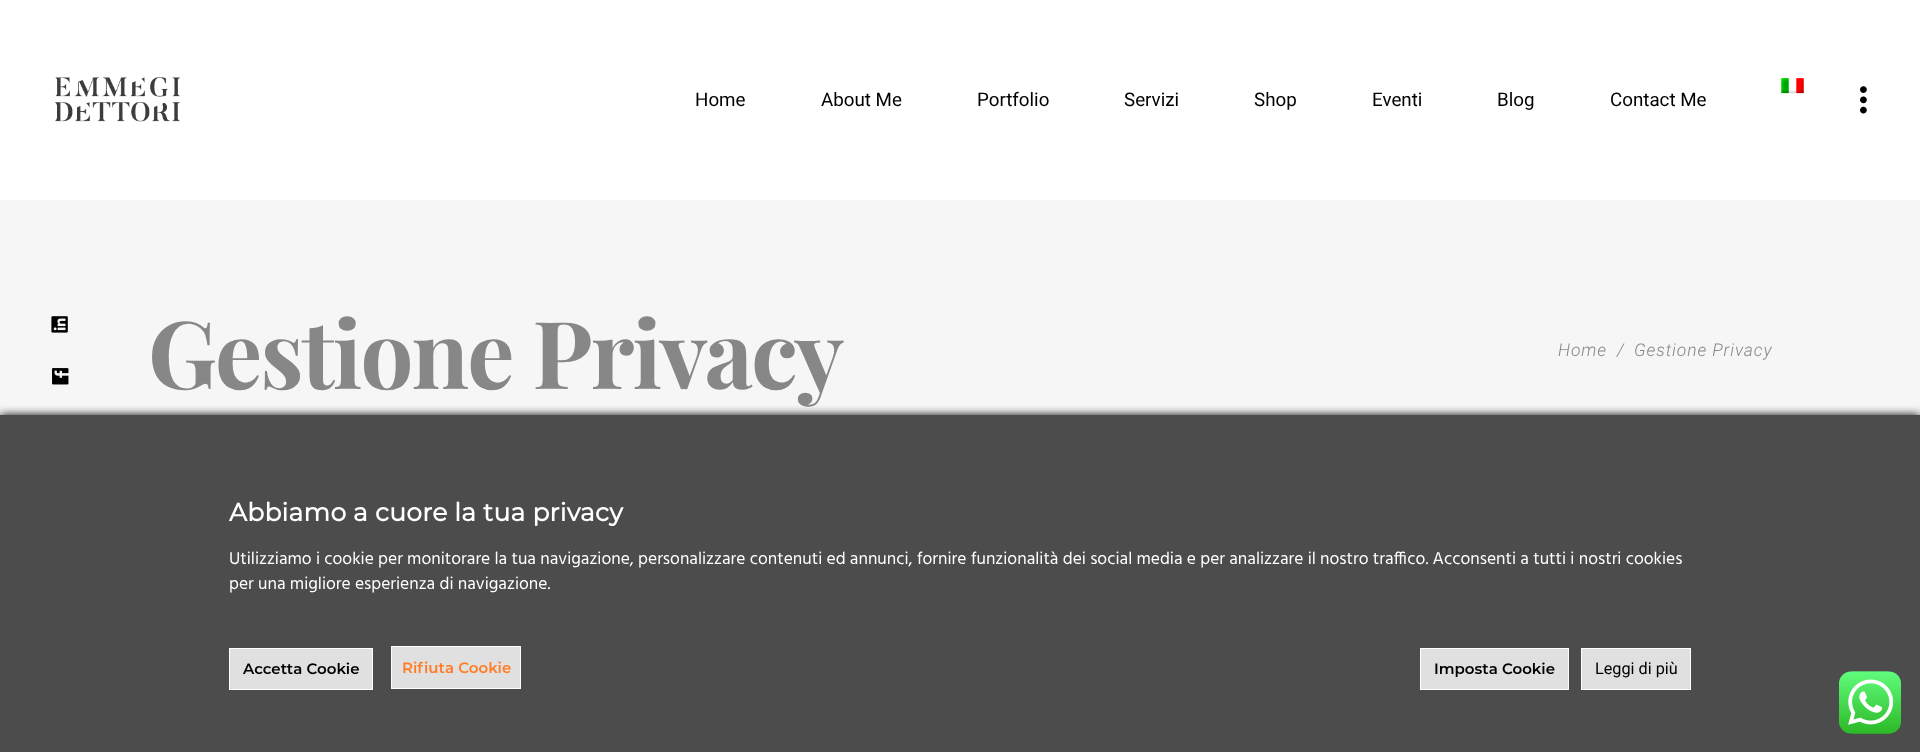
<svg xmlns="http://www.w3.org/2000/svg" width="1920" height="752">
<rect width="100%" height="100%" fill="#fff"/>
<image x="55" y="77" width="125" height="45" href="media/1.png"/>
<image x="1781" y="78" width="23" height="16" href="media/2.png"/>
<text x="695" y="106" style="font-family:Roboto;font-size:18.75px;fill:#000">Home</text>
<text x="821" y="106" style="font-family:Roboto;font-size:18.75px;fill:#000">About Me</text>
<text x="977" y="106" style="font-family:Roboto;font-size:18.75px;fill:#000">Portfolio</text>
<text x="1124" y="106" style="font-family:Roboto;font-size:18.75px;fill:#000">Servizi</text>
<text x="1254" y="106" style="font-family:Roboto;font-size:18.75px;fill:#000">Shop</text>
<text x="1372" y="106" style="font-family:Roboto;font-size:18.75px;fill:#000">Eventi</text>
<text x="1497" y="106" style="font-family:Roboto;font-size:18.75px;fill:#000">Blog</text>
<text x="1610" y="106" style="font-family:Roboto;font-size:18.75px;fill:#000">Contact Me</text>
<image x="1860" y="86" width="7" height="28" href="media/3.png"/>
<rect y="200" width="1920" height="215" fill="#f6f6f6"/>
<image x="51" y="316" width="17" height="17" href="media/4.png"/>
<image x="52" y="368" width="17" height="17" href="media/5.png"/>
<text x="148" y="389" style="font-family:Playfair Display;font-size:93.75px;font-weight:bold;letter-spacing:-1.9px;fill:#878787">Gestione Privacy</text>
<text x="1558" y="356" style="font-family:Roboto;font-size:17.5px;font-weight:300;font-style:italic;letter-spacing:0.9px;fill:#878787">Home</text>
<text x="1617" y="356" style="font-family:Roboto;font-size:17.5px;font-weight:300;font-style:italic;letter-spacing:0.9px;fill:#878787">/</text>
<text x="1634" y="356" style="font-family:Roboto;font-size:17.5px;font-weight:300;font-style:italic;letter-spacing:0.9px;fill:#878787">Gestione Privacy</text>
<rect y="415" width="1920" height="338" fill="#000" filter="blur(5px)"/>
<rect y="415" width="1920" height="337" fill="#4c4c4c"/>
<text x="229" y="521" style="font-family:Montserrat;font-size:25px;font-weight:bold;letter-spacing:0.25px;fill:#fff">Abbiamo a cuore la tua privacy</text>
<text x="229" y="564" style="font-family:Hind;font-size:17.5px;fill:#fff">Utilizziamo i cookie per monitorare la tua navigazione, personalizzare contenuti ed annunci, fornire funzionalità dei social media e per analizzare il nostro traffico. Acconsenti a tutti i nostri cookies</text>
<text x="229" y="589" style="font-family:Hind;font-size:17.5px;fill:#fff">per una migliore esperienza di navigazione.</text>
<rect x="229.5" y="648.5" width="143" height="41" fill="#e0e0e0" stroke="#fff"/>
<text x="243" y="674" style="font-family:Montserrat;font-size:15px;font-weight:600;fill:#000">Accetta Cookie</text>
<rect x="391.5" y="646.5" width="129" height="42" fill="#e0e0e0" stroke="#fff"/>
<text x="402" y="673" style="font-family:Montserrat;font-size:15px;font-weight:600;fill:#ff7d27">Rifiuta Cookie</text>
<rect x="1420.5" y="648.5" width="148" height="41" fill="#e0e0e0" stroke="#fff"/>
<text x="1434" y="674" style="font-family:Montserrat;font-size:15px;font-weight:600;fill:#000">Imposta Cookie</text>
<rect x="1581.5" y="648.5" width="109" height="41" fill="#e0e0e0" stroke="#fff"/>
<text x="1595" y="674" style="font-family:Roboto;font-size:16.25px;fill:#000">Leggi di più</text>
<image x="1839" y="671" width="62" height="63" href="media/6.png"/>
</svg>
